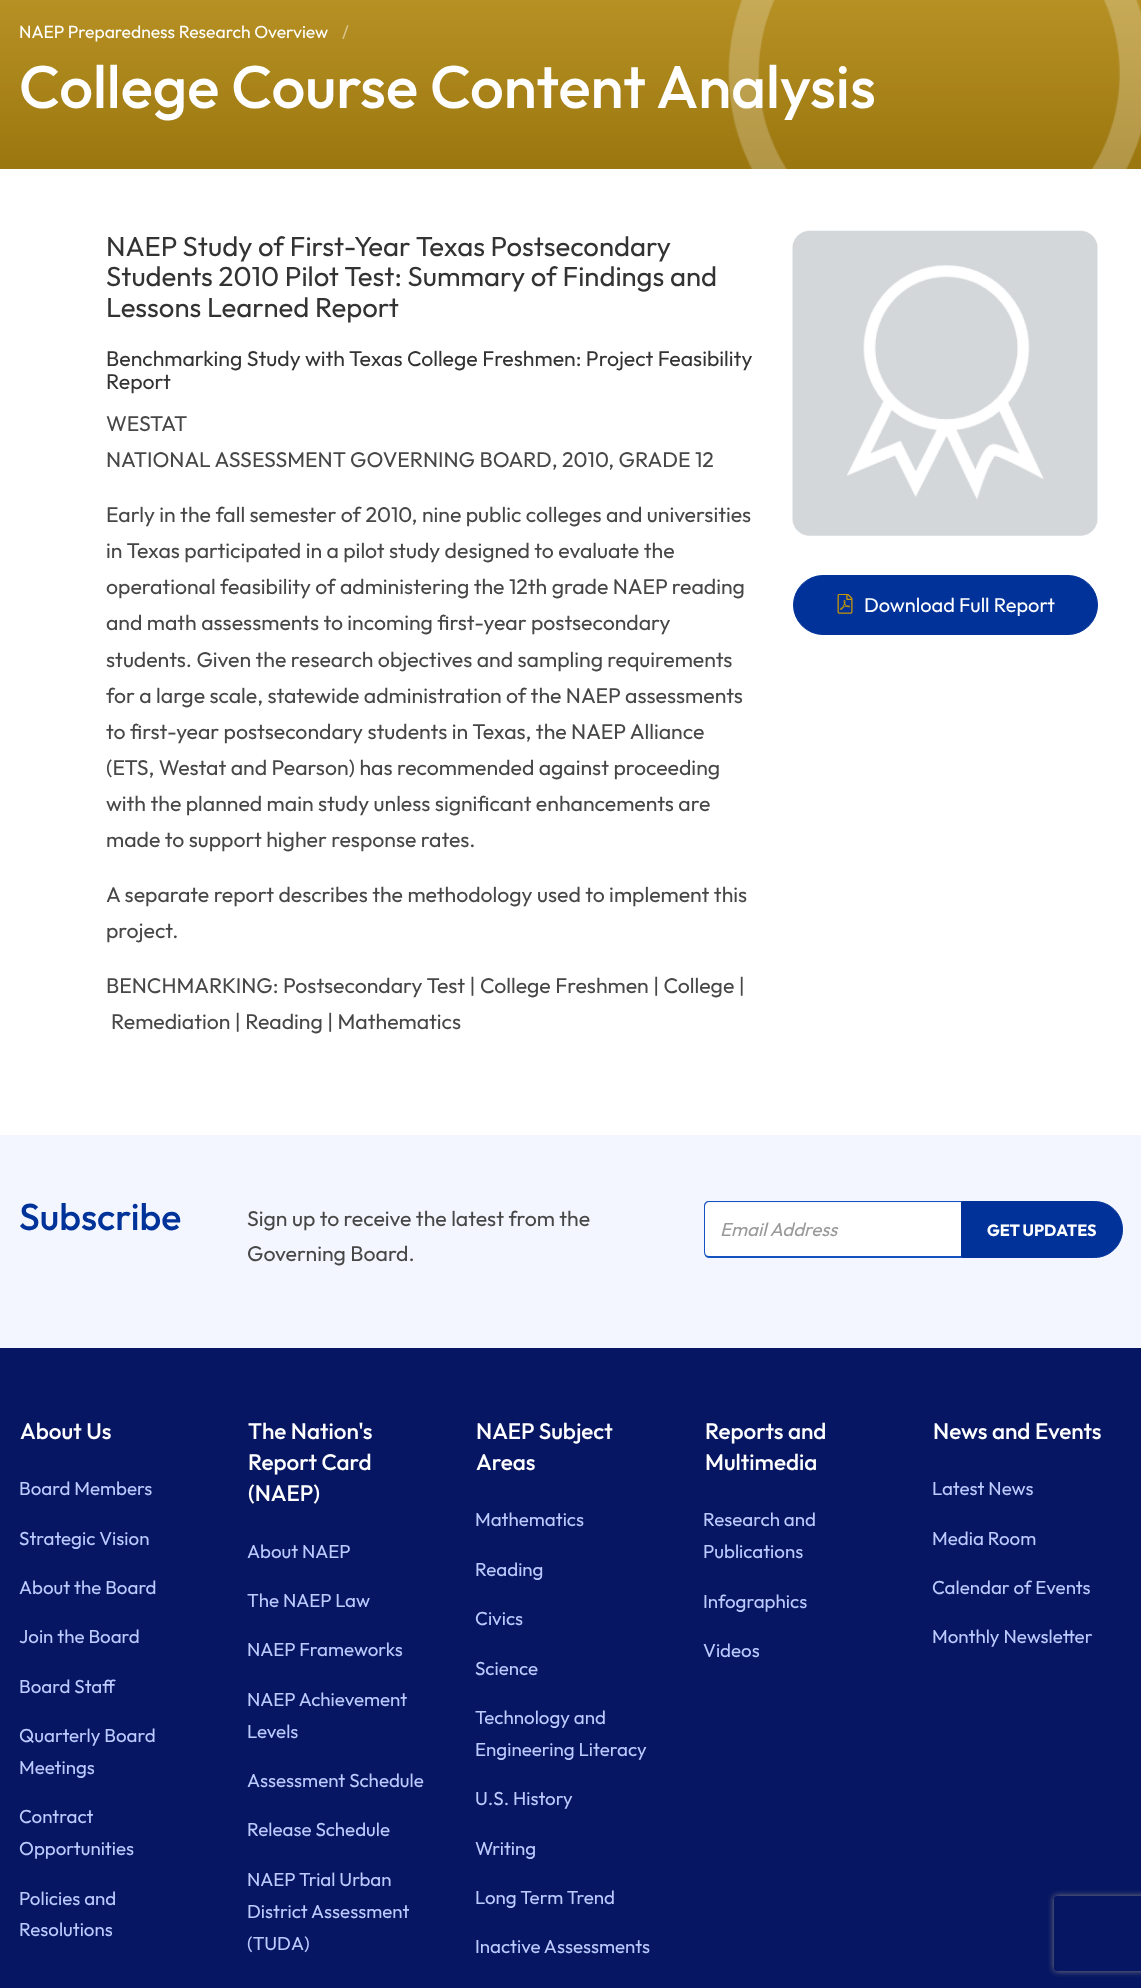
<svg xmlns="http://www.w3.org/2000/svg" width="1141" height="1988">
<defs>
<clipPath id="clip1"><path d="M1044 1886h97v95h-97zm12.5 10h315c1.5 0 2.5 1 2.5 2.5v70c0 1.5-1 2.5-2.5 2.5h-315c-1.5 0-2.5-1-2.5-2.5v-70c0-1.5 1-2.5 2.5-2.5z" clip-rule="evenodd"/></clipPath>
</defs>
<rect width="100%" height="100%" fill="#fff"/>
<image x="0" y="0" width="1141" height="169" href="media/1.png"/>
<text x="19" y="38" style="font-family:Outfit;font-size:17.5px;fill:#fff">NAEP Preparedness Research Overview</text>
<text x="342" y="38" style="font-family:Outfit;font-size:17.5px;fill:#d8c58f">/</text>
<text x="19" y="108" style="font-family:Outfit;font-size:60px;font-weight:500;fill:#fff">College Course Content Analysis</text>
<text x="106" y="256" style="font-family:Outfit;font-size:27.5px;fill:#333">NAEP Study of First-Year Texas Postsecondary</text>
<text x="106" y="286" style="font-family:Outfit;font-size:27.5px;fill:#333">Students 2010 Pilot Test: Summary of Findings and</text>
<text x="106" y="317" style="font-family:Outfit;font-size:27.5px;fill:#333">Lessons Learned Report</text>
<text x="106" y="366" style="font-family:Outfit;font-size:21.25px;fill:#333">Benchmarking Study with Texas College Freshmen: Project Feasibility</text>
<text x="106" y="389" style="font-family:Outfit;font-size:21.25px;fill:#333">Report</text>
<text x="106" y="431" style="font-family:Outfit;font-size:21.25px;fill:#474747">WESTAT</text>
<text x="106" y="467" style="font-family:Outfit;font-size:21.25px;fill:#474747">NATIONAL ASSESSMENT GOVERNING BOARD, 2010, GRADE 12</text>
<text x="106" y="522" style="font-family:Outfit;font-size:21.25px;fill:#474747">Early in the fall semester of 2010, nine public colleges and universities</text>
<text x="106" y="558" style="font-family:Outfit;font-size:21.25px;fill:#474747">in Texas participated in a pilot study designed to evaluate the</text>
<text x="106" y="594" style="font-family:Outfit;font-size:21.25px;fill:#474747">operational feasibility of administering the 12th grade NAEP reading</text>
<text x="106" y="630" style="font-family:Outfit;font-size:21.25px;fill:#474747">and math assessments to incoming first-year postsecondary</text>
<text x="106" y="667" style="font-family:Outfit;font-size:21.25px;fill:#474747">students. Given the research objectives and sampling requirements</text>
<text x="106" y="703" style="font-family:Outfit;font-size:21.25px;fill:#474747">for a large scale, statewide administration of the NAEP assessments</text>
<text x="106" y="739" style="font-family:Outfit;font-size:21.25px;fill:#474747">to first-year postsecondary students in Texas, the NAEP Alliance</text>
<text x="106" y="775" style="font-family:Outfit;font-size:21.25px;fill:#474747">(ETS, Westat and Pearson) has recommended against proceeding</text>
<text x="106" y="811" style="font-family:Outfit;font-size:21.25px;fill:#474747">with the planned main study unless significant enhancements are</text>
<text x="106" y="847" style="font-family:Outfit;font-size:21.25px;fill:#474747">made to support higher response rates.</text>
<text x="106" y="902" style="font-family:Outfit;font-size:21.25px;fill:#474747">A separate report describes the methodology used to implement this</text>
<text x="106" y="938" style="font-family:Outfit;font-size:21.25px;fill:#474747">project.</text>
<text x="106" y="993" style="font-family:Outfit;font-size:21.25px;fill:#474747">BENCHMARKING: Postsecondary Test | College Freshmen | College |</text>
<text x="111" y="1029" style="font-family:Outfit;font-size:21.25px;fill:#474747">Remediation | Reading | Mathematics</text>
<image x="792" y="230" width="306" height="306" href="media/2.png"/>
<rect x="793.5" y="575.5" width="304" height="59" rx="29.5" fill="#003299" stroke="#003299"/>
<image x="837" y="594" width="16" height="20" href="media/3.png"/>
<text x="864" y="612" style="font-family:Outfit;font-size:20px;fill:#fff">Download Full Report</text>
<rect y="1135" width="1141" height="213" fill="#f3f6ff"/>
<text x="19" y="1230" style="font-family:Outfit;font-size:37.5px;font-weight:500;fill:#039">Subscribe</text>
<text x="247" y="1226" style="font-family:Outfit;font-size:21.25px;fill:#474747">Sign up to receive the latest from the</text>
<text x="247" y="1261" style="font-family:Outfit;font-size:21.25px;fill:#474747">Governing Board.</text>
<path d="M709 1203h252v53h-252c-2 0-4-2-4-4v-45c0-2 2-4 4-4z" fill="#fff"/>
<path d="M709 1201h252v57h-252c-3 0-5-3-5-6v-46c0-3 2-5 5-5zm0 1h252v54h-252c-2 0-4-1-4-4v-46c0-2 2-4 4-4z" fill="#1552c1" fill-rule="evenodd"/>
<text x="720" y="1236" style="font-family:Outfit;font-size:18.75px;font-style:italic;fill:#999">Email Address</text>
<path d="M961.5 1201.5h133c15.5 0 28 12.5 28 28c0 15.5-12.5 28-28 28h-133z" fill="#003299" stroke="#003299"/>
<text x="987" y="1236" style="font-family:Outfit;font-size:16.25px;font-weight:bold;fill:#fff">GET UPDATES</text>
<rect y="1348" width="1141" height="640" fill="#061662"/>
<text x="20" y="1439" style="font-family:Outfit;font-size:22.5px;font-weight:500;fill:#fff">About Us</text>
<text x="19" y="1495" style="font-family:Outfit;font-size:18.75px;fill:#bccaff">Board Members</text>
<text x="19" y="1545" style="font-family:Outfit;font-size:18.75px;fill:#bccaff">Strategic Vision</text>
<text x="19" y="1594" style="font-family:Outfit;font-size:18.75px;fill:#bccaff">About the Board</text>
<text x="19" y="1643" style="font-family:Outfit;font-size:18.75px;fill:#bccaff">Join the Board</text>
<text x="19" y="1693" style="font-family:Outfit;font-size:18.75px;fill:#bccaff">Board Staff</text>
<text x="19" y="1742" style="font-family:Outfit;font-size:18.75px;fill:#bccaff">Quarterly Board</text>
<text x="19" y="1774" style="font-family:Outfit;font-size:18.75px;fill:#bccaff">Meetings</text>
<text x="19" y="1823" style="font-family:Outfit;font-size:18.75px;fill:#bccaff">Contract</text>
<text x="19" y="1855" style="font-family:Outfit;font-size:18.75px;fill:#bccaff">Opportunities</text>
<text x="19" y="1905" style="font-family:Outfit;font-size:18.75px;fill:#bccaff">Policies and</text>
<text x="19" y="1936" style="font-family:Outfit;font-size:18.75px;fill:#bccaff">Resolutions</text>
<text x="248" y="1439" style="font-family:Outfit;font-size:22.5px;font-weight:500;fill:#fff">The Nation's</text>
<text x="248" y="1470" style="font-family:Outfit;font-size:22.5px;font-weight:500;fill:#fff">Report Card</text>
<text x="248" y="1501" style="font-family:Outfit;font-size:22.5px;font-weight:500;fill:#fff">(NAEP)</text>
<text x="247" y="1558" style="font-family:Outfit;font-size:18.75px;fill:#bccaff">About NAEP</text>
<text x="247" y="1607" style="font-family:Outfit;font-size:18.75px;fill:#bccaff">The NAEP Law</text>
<text x="247" y="1656" style="font-family:Outfit;font-size:18.75px;fill:#bccaff">NAEP Frameworks</text>
<text x="247" y="1706" style="font-family:Outfit;font-size:18.75px;fill:#bccaff">NAEP Achievement</text>
<text x="247" y="1738" style="font-family:Outfit;font-size:18.75px;fill:#bccaff">Levels</text>
<text x="247" y="1787" style="font-family:Outfit;font-size:18.75px;fill:#bccaff">Assessment Schedule</text>
<text x="247" y="1836" style="font-family:Outfit;font-size:18.75px;fill:#bccaff">Release Schedule</text>
<text x="247" y="1886" style="font-family:Outfit;font-size:18.75px;fill:#bccaff">NAEP Trial Urban</text>
<text x="247" y="1918" style="font-family:Outfit;font-size:18.75px;fill:#bccaff">District Assessment</text>
<text x="247" y="1950" style="font-family:Outfit;font-size:18.75px;fill:#bccaff">(TUDA)</text>
<text x="476" y="1439" style="font-family:Outfit;font-size:22.5px;font-weight:500;fill:#fff">NAEP Subject</text>
<text x="476" y="1470" style="font-family:Outfit;font-size:22.5px;font-weight:500;fill:#fff">Areas</text>
<text x="475" y="1526" style="font-family:Outfit;font-size:18.75px;fill:#bccaff">Mathematics</text>
<text x="475" y="1576" style="font-family:Outfit;font-size:18.75px;fill:#bccaff">Reading</text>
<text x="475" y="1625" style="font-family:Outfit;font-size:18.75px;fill:#bccaff">Civics</text>
<text x="475" y="1675" style="font-family:Outfit;font-size:18.75px;fill:#bccaff">Science</text>
<text x="475" y="1724" style="font-family:Outfit;font-size:18.75px;fill:#bccaff">Technology and</text>
<text x="475" y="1756" style="font-family:Outfit;font-size:18.75px;fill:#bccaff">Engineering Literacy</text>
<text x="475" y="1805" style="font-family:Outfit;font-size:18.75px;fill:#bccaff">U.S. History</text>
<text x="475" y="1855" style="font-family:Outfit;font-size:18.75px;fill:#bccaff">Writing</text>
<text x="475" y="1904" style="font-family:Outfit;font-size:18.75px;fill:#bccaff">Long Term Trend</text>
<text x="475" y="1953" style="font-family:Outfit;font-size:18.75px;fill:#bccaff">Inactive Assessments</text>
<text x="705" y="1439" style="font-family:Outfit;font-size:22.5px;font-weight:500;fill:#fff">Reports and</text>
<text x="705" y="1470" style="font-family:Outfit;font-size:22.5px;font-weight:500;fill:#fff">Multimedia</text>
<text x="703" y="1526" style="font-family:Outfit;font-size:18.75px;fill:#bccaff">Research and</text>
<text x="703" y="1558" style="font-family:Outfit;font-size:18.75px;fill:#bccaff">Publications</text>
<text x="703" y="1608" style="font-family:Outfit;font-size:18.75px;fill:#bccaff">Infographics</text>
<text x="703" y="1657" style="font-family:Outfit;font-size:18.75px;fill:#bccaff">Videos</text>
<text x="933" y="1439" style="font-family:Outfit;font-size:22.5px;font-weight:500;fill:#fff">News and Events</text>
<text x="932" y="1495" style="font-family:Outfit;font-size:18.75px;fill:#bccaff">Latest News</text>
<text x="932" y="1545" style="font-family:Outfit;font-size:18.75px;fill:#bccaff">Media Room</text>
<text x="932" y="1594" style="font-family:Outfit;font-size:18.75px;fill:#bccaff">Calendar of Events</text>
<text x="932" y="1643" style="font-family:Outfit;font-size:18.75px;fill:#bccaff">Monthly Newsletter</text>
<g clip-path="url(#clip1)">
<rect x="1054" y="1896" width="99" height="75" rx="2.5" fill="#808080" filter="blur(3px)"/>
</g>
</svg>
